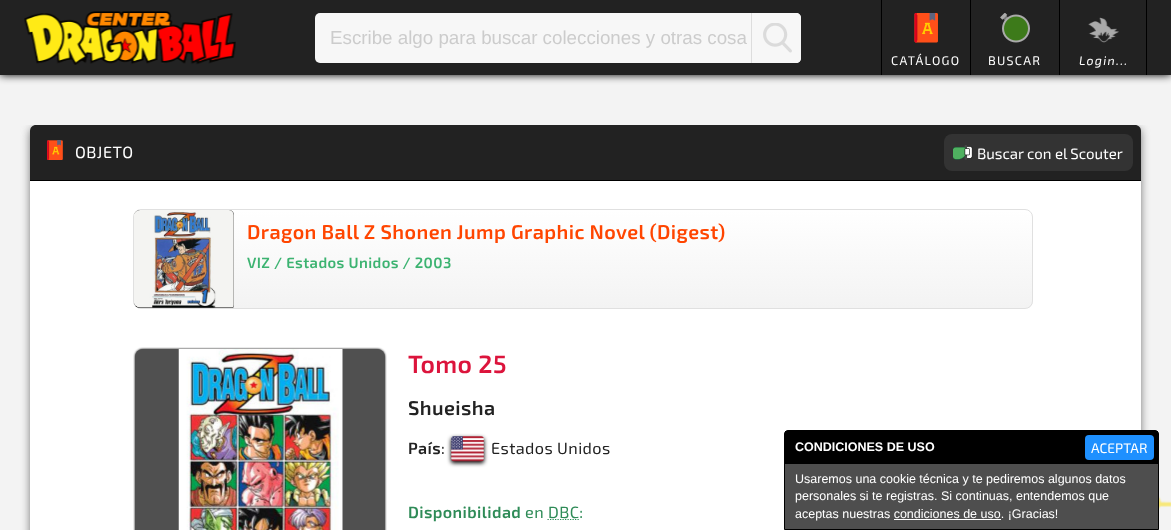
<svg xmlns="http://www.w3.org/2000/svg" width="1171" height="530">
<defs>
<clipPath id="clip1"><rect x="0" y="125" width="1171" height="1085"/></clipPath>
<clipPath id="clip2"><rect x="133" y="209" width="900" height="100" rx="8"/></clipPath>
<linearGradient id="g1" gradientUnits="userSpaceOnUse" x1="583" y1="210" x2="583" y2="308"><stop offset="0" stop-color="#fff"/><stop offset="1" stop-color="#f3f3f3"/></linearGradient>
<clipPath id="clip3"><rect x="134" y="210" width="897" height="98" rx="6"/></clipPath>
</defs>
<rect width="100%" height="100%" fill="#f3f3f3"/>
<rect width="1171" height="75" fill="#000" filter="blur(4px)"/>
<rect width="1171" height="75" fill="#222"/>
<image x="24" y="11" width="212" height="54" href="media/1.png"/>
<rect x="315" y="13" width="486" height="50" rx="5" fill="#f7f7f7"/>
<text x="330" y="44" style="font-family:Liberation Sans;font-size:18.75px;fill:#ccc">Escribe algo para buscar colecciones y otras cosa</text>
<path d="M751 13h45c3 0 5 2 5 5v40c0 3-2 5-5 5h-45z" fill="#f7f7f7"/>
<image x="763" y="23" width="29" height="30" href="media/2.png"/>
<rect x="751" y="13" width="1" height="50" fill="#ddd"/>
<rect x="1146" width="1" height="75" fill="#000"/>
<image x="914" y="13" width="24" height="30" href="media/3.png"/>
<rect x="881" width="1" height="75" fill="#000"/>
<text x="891" y="65" style="font-family:'Exo 2';font-size:12.5px;letter-spacing:1.25px;fill:#fff">CATÁLOGO</text>
<image x="1000" y="13" width="30" height="30" href="media/4.png"/>
<rect x="970" width="1" height="75" fill="#000"/>
<text x="988" y="65" style="font-family:'Exo 2';font-size:12.5px;letter-spacing:1.25px;fill:#fff">BUSCAR</text>
<rect x="1059" width="1" height="75" fill="#000"/>
<image x="1088" y="17" width="31" height="26" href="media/5.png"/>
<text x="1079" y="65" style="font-family:'Exo 2';font-size:12.5px;font-style:italic;letter-spacing:1.25px;fill:#fff">Login...</text>
<g clip-path="url(#clip1)">
<rect x="30" y="128" width="1111" height="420" rx="6" fill="#777" filter="blur(4px)"/>
</g>
<rect x="30" y="125" width="1111" height="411" rx="6" fill="#fff"/>
<path d="M36 125h1099c3.5 0 6 2.5 6 6v50h-1111v-50c0-3.5 2.5-6 6-6z" fill="#222"/>
<image x="47" y="140" width="16" height="20" href="media/6.png"/>
<rect x="30" y="180" width="1111" height="1" fill="#000"/>
<text x="75" y="158" style="font-family:'Exo 2';font-size:16.25px;letter-spacing:0.5px;fill:#fff">OBJETO</text>
<rect x="944" y="134" width="189" height="37" rx="8" fill="#333"/>
<image x="953" y="145" width="20" height="15" href="media/7.png"/>
<text x="977" y="159" style="font-family:'Exo 2';font-size:15px;fill:#fff">Buscar con el Scouter</text>
<g clip-path="url(#clip2)">
<rect x="133" y="210" width="900" height="98" fill="url(#g1)"/>
</g>
<rect x="133.5" y="209.5" width="899" height="99" rx="7.5" fill="none" stroke="#e0e0e0"/>
<g clip-path="url(#clip3)">
<rect x="134" y="210" width="100" height="100" rx="5" fill="#000"/>
</g>
<image x="134" y="210" width="100" height="98" href="media/8.png"/>
<text x="247" y="239" style="font-family:'Exo 2';font-size:20px;font-weight:600;letter-spacing:0.4px;fill:#ff4500">Dragon Ball Z Shonen Jump Graphic Novel (Digest)</text>
<text x="247" y="268" style="font-family:'Exo 2';font-size:15px;font-weight:600;letter-spacing:0.4px;fill:#3cb371">VIZ / Estados Unidos / 2003</text>
<rect x="135" y="349" width="250" height="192" rx="8" fill="#000" filter="blur(1px)"/>
<rect x="135" y="349" width="250" height="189" rx="8" fill="#505050"/>
<image x="178" y="349" width="165" height="181" href="media/9.png"/>
<text x="408" y="373" style="font-family:'Exo 2';font-size:25px;font-weight:600;letter-spacing:0.4px;fill:#dc143c">Tomo 25</text>
<text x="408" y="415" style="font-family:'Exo 2';font-size:20px;font-weight:600;letter-spacing:0.4px;fill:#222">Shueisha</text>
<text x="408" y="454" style="font-family:'Exo 2';font-size:16.25px;font-weight:600;letter-spacing:0.4px;fill:#222">País</text>
<text x="441" y="454" style="font-family:'Exo 2';font-size:16.25px;letter-spacing:0.4px;fill:#222">:</text>
<rect x="451" y="438" width="33" height="25" rx="2.5" fill="#000" filter="blur(2px)"/>
<image x="451" y="436" width="33" height="26" href="media/10.png"/>
<text x="491" y="454" style="font-family:'Exo 2';font-size:16.25px;letter-spacing:0.4px;fill:#222">Estados Unidos</text>
<text x="408" y="518" style="font-family:'Exo 2';font-size:16.25px;font-weight:600;letter-spacing:0.4px;fill:#2e8b57">Disponibilidad</text>
<text x="525" y="518" style="font-family:'Exo 2';font-size:16.25px;letter-spacing:0.4px;fill:#2e8b57">en</text>
<path d="M547.5 519.5h31.5" fill="none" stroke="#2e8b57" stroke-width="1.2" stroke-dasharray="1.25 1.25"/>
<text x="548" y="518" style="font-family:'Exo 2';font-size:16.25px;letter-spacing:0.4px;fill:#2e8b57">DBC:</text>
<image x="1159" y="496" width="12" height="14" href="media/11.png"/>
<path d="M788 430.5h367c2 0 3.5 1.5 3.5 3.5v95.5h-374v-95.5c0-2 1.5-3.5 3.5-3.5z" fill="#4e4e4e" stroke="#000"/>
<rect x="785" y="431" width="373" height="33" fill="#000"/>
<text x="795" y="451" style="font-family:Liberation Sans;font-size:12.5px;font-weight:bold;fill:#fff">CONDICIONES DE USO</text>
<rect x="1085" y="435" width="69" height="25" rx="4" fill="#1e90ff"/>
<text x="1091" y="453" style="font-family:'Exo 2';font-size:13.75px;fill:#fff">ACEPTAR</text>
<text x="795" y="483" style="font-family:Liberation Sans;font-size:12.5px;fill:#fff">Usaremos una cookie técnica y te pediremos algunos datos</text>
<text x="795" y="500" style="font-family:Liberation Sans;font-size:12.5px;fill:#fff">personales si te registras. Si continuas, entendemos que</text>
<text x="795" y="518" style="font-family:Liberation Sans;font-size:12.5px;fill:#fff">aceptas nuestras condiciones de uso. ¡Gracias!</text>
<rect x="894" y="519" width="107" height="1" fill="#fff"/>
</svg>
